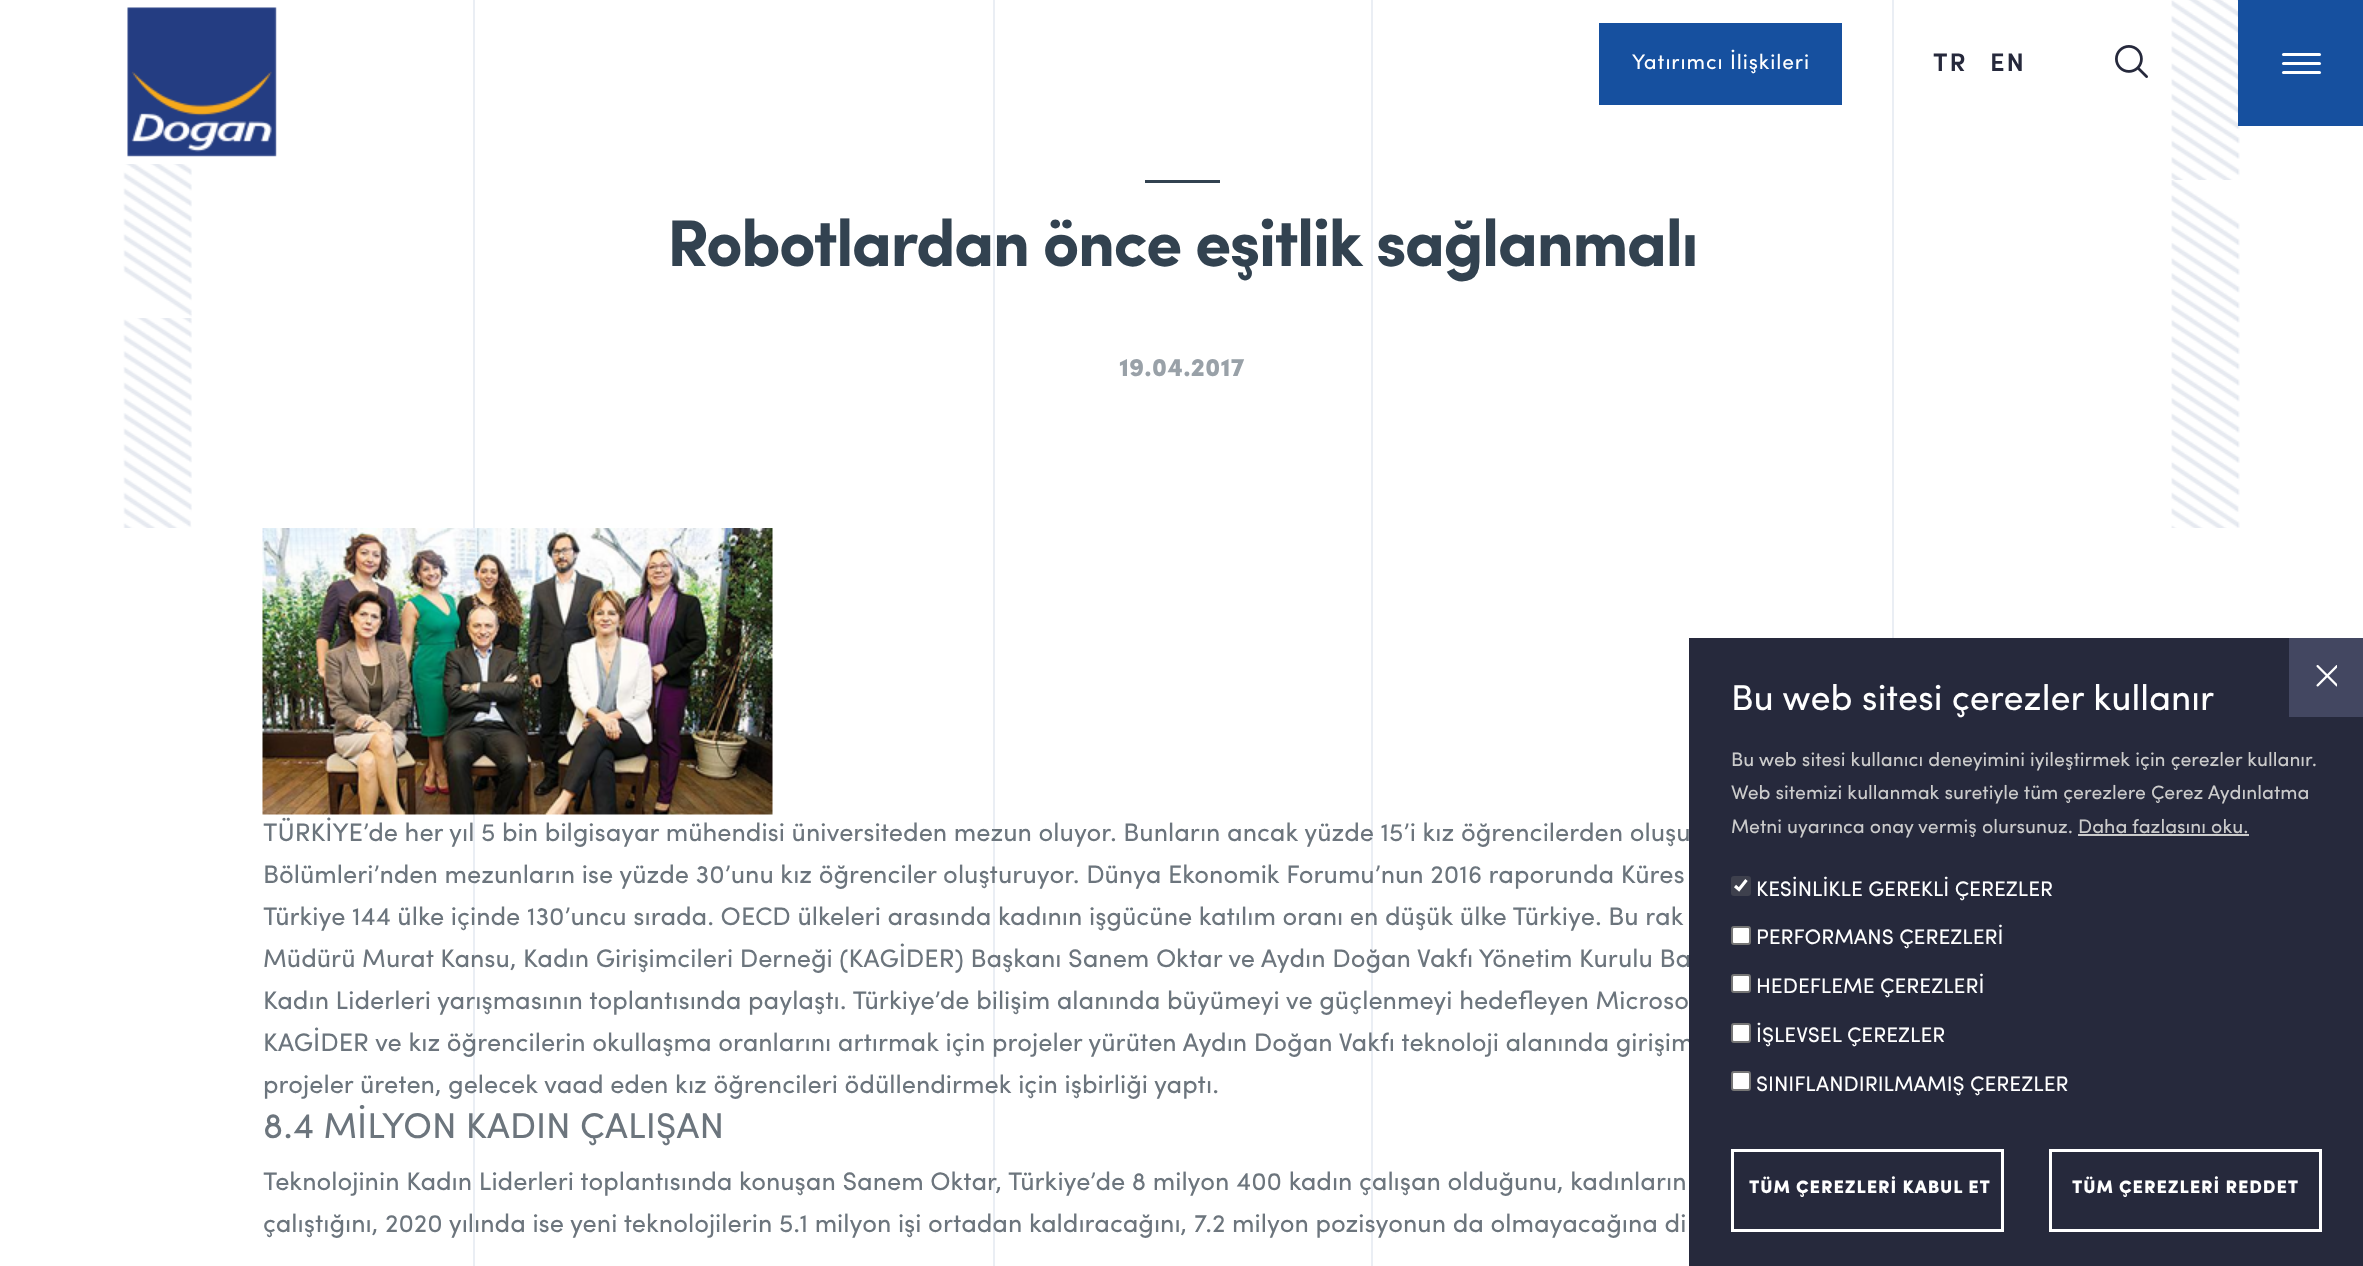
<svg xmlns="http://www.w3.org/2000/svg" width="2363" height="1266">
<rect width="100%" height="100%" fill="#fff"/>
<image x="123" y="0" width="154" height="164" href="media/1.png"/>
<rect x="1599" y="23" width="243" height="82" fill="#16509f"/>
<text x="1632" y="69" style="font-family:Sofia;font-size:21px;letter-spacing:0.9px;fill:#fff">Yatırımcı İlişkileri</text>
<text x="1933" y="71" style="font-family:Sofia;font-size:25.5px;font-weight:600;letter-spacing:2px;fill:#26293c">TR</text>
<text x="1990" y="71" style="font-family:Sofia;font-size:25.5px;font-weight:600;letter-spacing:2px;fill:#26293c">EN</text>
<image x="2115" y="45" width="33" height="33" href="media/2.png"/>
<image x="2171" y="0" width="69" height="180" href="media/3.png"/>
<rect x="2238" width="125" height="126" fill="#16509f"/>
<rect x="2282" y="53" width="39" height="3" rx="1.5" fill="#fff"/>
<rect x="2282" y="62" width="39" height="3" rx="1.5" fill="#fff"/>
<rect x="2282" y="71" width="39" height="3" rx="1.5" fill="#fff"/>
<rect x="473" width="2" height="528" fill="#eaeef4"/>
<rect x="1892" width="2" height="638" fill="#eaeef4"/>
<rect x="993" width="2" height="1266" fill="#eaeef4"/>
<rect x="1371" width="2" height="1266" fill="#eaeef4"/>
<image x="123" y="164" width="69" height="154" href="media/4.png"/>
<rect x="1145" y="180" width="75" height="3" fill="#324250"/>
<text x="667" y="266" style="font-family:Sofia;font-size:66px;font-weight:bold;letter-spacing:-1.75px;fill:#324250">Robotlardan önce eşitlik sağlanmalı</text>
<image x="2171" y="180" width="69" height="348" href="media/5.png"/>
<image x="123" y="318" width="69" height="210" href="media/6.png"/>
<text x="1119" y="376" style="font-family:Sofia;font-size:25.5px;font-weight:900;fill:#99a1a8">19.04.2017</text>
<rect x="473" y="814" width="2" height="452" fill="#eaeef4"/>
<image x="262" y="528" width="511" height="287" href="media/7.png"/>
<text x="263" y="841" style="font-family:Sofia;font-size:25.5px;fill:#6c757d">TÜRKİYE’de her yıl 5 bin bilgisayar mühendisi üniversiteden mezun oluyor. Bunların ancak yüzde 15’i kız öğrencilerden oluşu</text>
<text x="263" y="883" style="font-family:Sofia;font-size:25.5px;fill:#6c757d">Bölümleri’nden mezunların ise yüzde 30’unu kız öğrenciler oluşturuyor. Dünya Ekonomik Forumu’nun 2016 raporunda Küres</text>
<text x="263" y="925" style="font-family:Sofia;font-size:25.5px;fill:#6c757d">Türkiye 144 ülke içinde 130’uncu sırada. OECD ülkeleri arasında kadının işgücüne katılım oranı en düşük ülke Türkiye. Bu rak</text>
<text x="263" y="967" style="font-family:Sofia;font-size:25.5px;fill:#6c757d">Müdürü Murat Kansu, Kadın Girişimcileri Derneği (KAGİDER) Başkanı Sanem Oktar ve Aydın Doğan Vakfı Yönetim Kurulu Ba</text>
<text x="263" y="1009" style="font-family:Sofia;font-size:25.5px;fill:#6c757d">Kadın Liderleri yarışmasının toplantısında paylaştı. Türkiye’de bilişim alanında büyümeyi ve güçlenmeyi hedefleyen Microso</text>
<text x="263" y="1051" style="font-family:Sofia;font-size:25.5px;fill:#6c757d">KAGİDER ve kız öğrencilerin okullaşma oranlarını artırmak için projeler yürüten Aydın Doğan Vakfı teknoloji alanında girişim</text>
<text x="263" y="1093" style="font-family:Sofia;font-size:25.5px;fill:#6c757d">projeler üreten, gelecek vaad eden kız öğrencileri ödüllendirmek için işbirliği yaptı.</text>
<text x="263" y="1138" style="font-family:Sofia;font-size:36px;fill:#6c757d">8.4 MİLYON KADIN ÇALIŞAN</text>
<text x="263" y="1190" style="font-family:Sofia;font-size:25.5px;fill:#6c757d">Teknolojinin Kadın Liderleri toplantısında konuşan Sanem Oktar, Türkiye’de 8 milyon 400 kadın çalışan olduğunu, kadınların</text>
<text x="263" y="1232" style="font-family:Sofia;font-size:25.5px;fill:#6c757d">çalıştığını, 2020 yılında ise yeni teknolojilerin 5.1 milyon işi ortadan kaldıracağını, 7.2 milyon pozisyonun da olmayacağına di</text>
<rect x="1689" y="638" width="674" height="628" fill="#26293c"/>
<text x="1731" y="710" style="font-family:Sofia;font-size:36px;fill:#fff">Bu web sitesi çerezler kullanır</text>
<text x="1731" y="766" style="font-family:Sofia;font-size:19.5px;fill:#cbcbcb">Bu web sitesi kullanıcı deneyimini iyileştirmek için çerezler kullanır.</text>
<text x="1731" y="799" style="font-family:Sofia;font-size:19.5px;fill:#cbcbcb">Web sitemizi kullanmak suretiyle tüm çerezlere Çerez Aydınlatma</text>
<text x="1731" y="833" style="font-family:Sofia;font-size:19.5px;fill:#cbcbcb">Metni uyarınca onay vermiş olursunuz. Daha fazlasını oku.</text>
<rect x="2078" y="834" width="171" height="2" fill="#cbcbcb"/>
<rect x="1731" y="876" width="20" height="20" rx="3" fill="#3e404d"/>
<path d="M1735 886l4 3.5l7.5-9.5" fill="none" stroke="#fff" stroke-width="3.1"/>
<text x="1756" y="896" style="font-family:Sofia;font-size:21px;fill:#fff">KESİNLİKLE GEREKLİ ÇEREZLER</text>
<rect x="1732" y="927" width="18" height="17" rx="2" fill="#fff" stroke="#767676" stroke-width="2"/>
<text x="1756" y="944" style="font-family:Sofia;font-size:21px;fill:#fff">PERFORMANS ÇEREZLERİ</text>
<rect x="1732" y="975" width="18" height="17" rx="2" fill="#fff" stroke="#767676" stroke-width="2"/>
<text x="1756" y="993" style="font-family:Sofia;font-size:21px;fill:#fff">HEDEFLEME ÇEREZLERİ</text>
<rect x="1732" y="1024" width="18" height="18" rx="2" fill="#fff" stroke="#767676" stroke-width="2"/>
<text x="1756" y="1042" style="font-family:Sofia;font-size:21px;fill:#fff">İŞLEVSEL ÇEREZLER</text>
<rect x="1732" y="1072" width="18" height="18" rx="2" fill="#fff" stroke="#767676" stroke-width="2"/>
<text x="1756" y="1091" style="font-family:Sofia;font-size:21px;fill:#fff">SINIFLANDIRILMAMIŞ ÇEREZLER</text>
<rect x="1732.5" y="1150.5" width="270" height="80" fill="none" stroke="#fff" stroke-width="3"/>
<text x="1749" y="1193" style="font-family:Sofia;font-size:18px;font-weight:900;letter-spacing:0.9px;fill:#fff">TÜM ÇEREZLERİ KABUL ET</text>
<rect x="2050.5" y="1150.5" width="270" height="80" fill="none" stroke="#fff" stroke-width="3"/>
<text x="2072" y="1193" style="font-family:Sofia;font-size:18px;font-weight:900;letter-spacing:0.9px;fill:#fff">TÜM ÇEREZLERİ REDDET</text>
<rect x="2289" y="638" width="74" height="79" fill="#434761"/>
<image x="2316" y="665" width="21" height="22" href="media/8.png"/>
</svg>
